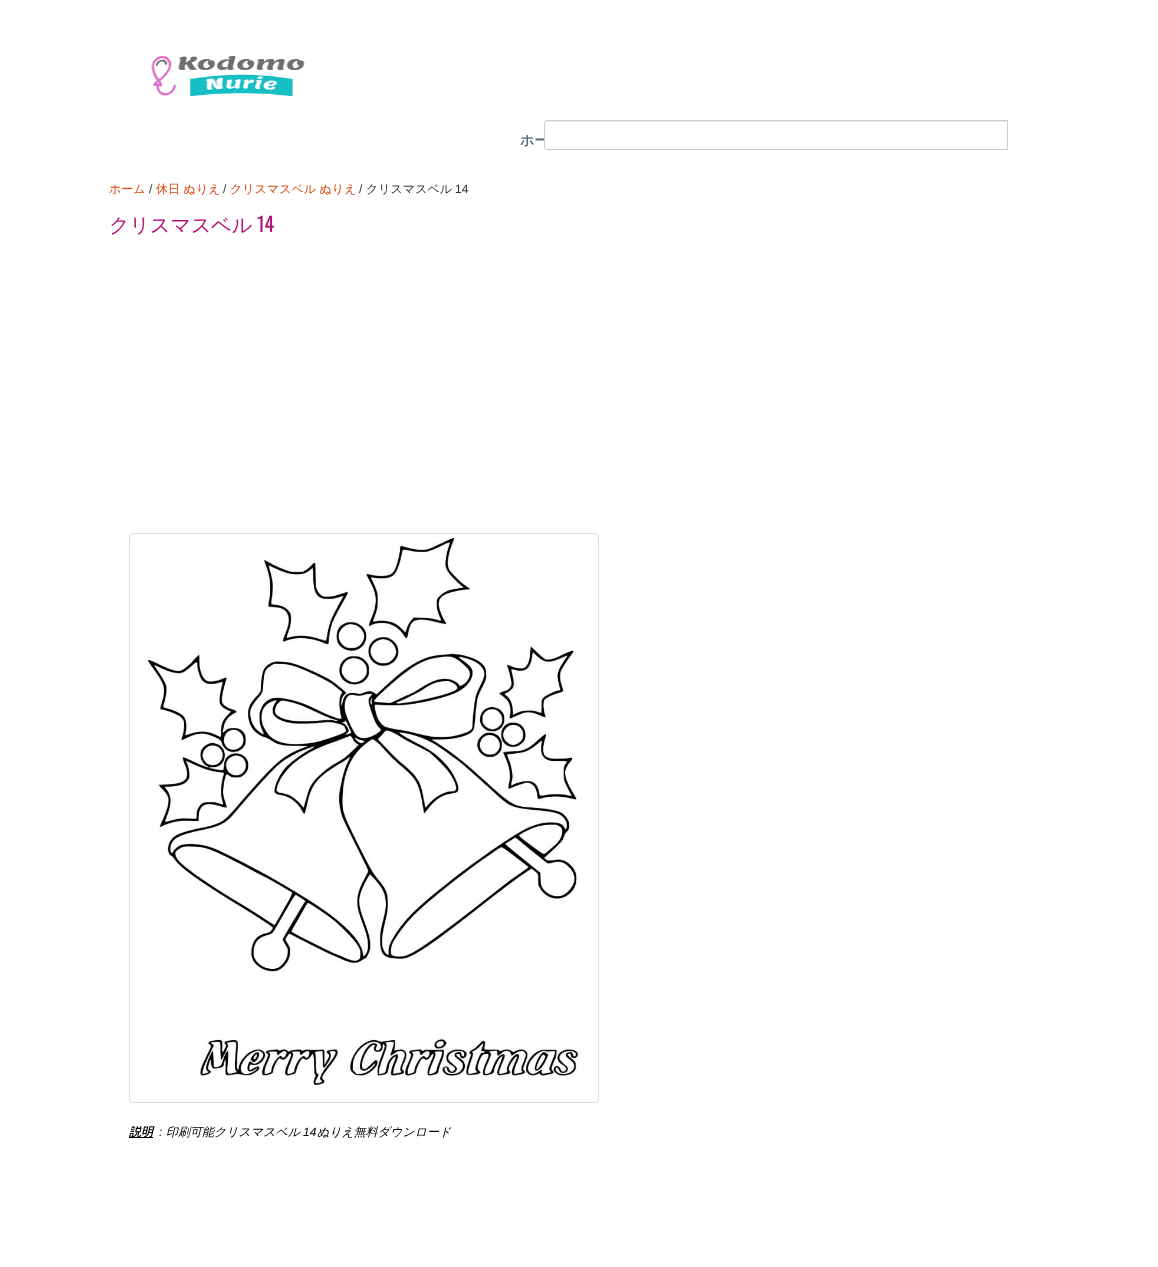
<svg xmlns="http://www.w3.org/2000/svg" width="1158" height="1267">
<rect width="100%" height="100%" fill="#fff"/>
<image x="151" y="55" width="154" height="42" href="media/1.png"/>
<text x="520" y="145" style="font-family:WenQuanYi Zen Hei;font-size:14px;font-weight:bold;fill:#576376">ホー</text>
<path d="M547 120h461v30h-461c-1.5 0-3-1.5-3-3v-24c0-1.5 1.5-3 3-3z" fill="#fff"/>
<path d="M547 122h460v-1h-460c-1 0-2 1-2 2z" fill="#ececec"/>
<path d="M547 120.5h460.5v29h-460.5c-1.5 0-2.5-1-2.5-2.5v-24c0-1.5 1-2.5 2.5-2.5z" fill="none" stroke="#ccc"/>
<text x="109" y="193" style="font-family:WenQuanYi Zen Hei;font-size:12px;font-weight:500;fill:#d8450b">ホーム</text>
<text x="149" y="193" style="font-family:Liberation Sans;font-size:12px;fill:#333">/</text>
<text x="156" y="193" style="font-family:WenQuanYi Zen Hei;font-size:12px;font-weight:500;fill:#d8450b">休日 ぬりえ</text>
<text x="223" y="193" style="font-family:Liberation Sans;font-size:12px;fill:#333">/</text>
<text x="230" y="193" style="font-family:WenQuanYi Zen Hei;font-size:12px;font-weight:500;fill:#d8450b">クリスマスベル ぬりえ</text>
<text x="359" y="193" style="font-family:Liberation Sans;font-size:12px;fill:#333">/</text>
<text x="366" y="193" style="font-family:WenQuanYi Zen Hei;font-size:12px;font-weight:500;fill:#333">クリスマスベル</text>
<text x="455" y="193" style="font-family:Liberation Sans;font-size:12px;fill:#333">14</text>
<text x="109" y="232" style="font-family:WenQuanYi Zen Hei;font-size:20px;font-weight:500;fill:#b41376">クリスマスベル</text>
<text x="257" y="232" style="font-family:Oswald;font-size:20px;fill:#b41376">14</text>
<rect x="129.5" y="533.5" width="469" height="569" rx="3.5" fill="none" stroke="#ddd"/>
<image x="148" y="538" width="431" height="547" href="media/2.png"/>
<rect x="129" y="1137" width="24" height="1" fill="#000"/>
<text x="129" y="1136" style="font-family:WenQuanYi Zen Hei;font-size:12px;font-weight:bold;font-style:italic;fill:#000">説明</text>
<text x="159" y="1136" style="font-family:Liberation Sans;font-size:12px;font-style:italic;fill:#000">:</text>
<text x="166" y="1136" style="font-family:WenQuanYi Zen Hei;font-size:12px;font-weight:500;font-style:italic;fill:#000">印刷可能クリスマスベル</text>
<text x="303" y="1136" style="font-family:Liberation Sans;font-size:12px;font-style:italic;fill:#000">14</text>
<text x="317" y="1136" style="font-family:WenQuanYi Zen Hei;font-size:12px;font-weight:500;font-style:italic;fill:#000">ぬりえ無料ダウンロード</text>
</svg>
